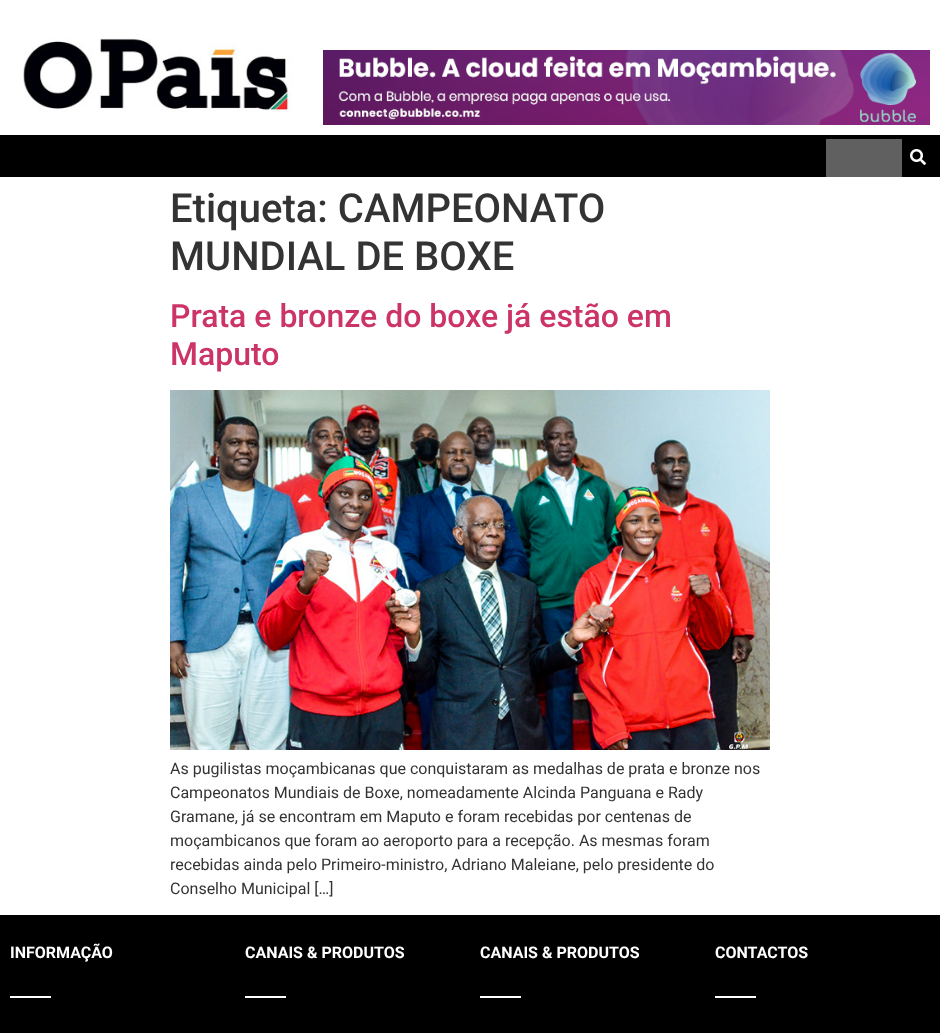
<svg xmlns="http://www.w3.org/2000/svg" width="940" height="1033">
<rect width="100%" height="100%" fill="#fff"/>
<image x="23" y="38" width="269" height="75" href="media/1.png"/>
<image x="323" y="50" width="607" height="75" href="media/2.png"/>
<rect y="135" width="940" height="42" fill="#000"/>
<rect x="826" y="139" width="76" height="38" fill="#606060"/>
<image x="910" y="149" width="16" height="16" href="media/3.png"/>
<text x="170" y="222" style="font-family:Roboto;font-size:40px;font-weight:500;fill:#333">Etiqueta: CAMPEONATO</text>
<text x="170" y="270" style="font-family:Roboto;font-size:40px;font-weight:500;fill:#333">MUNDIAL DE BOXE</text>
<text x="170" y="327" style="font-family:Roboto;font-size:32px;font-weight:500;fill:#c36">Prata e bronze do boxe já estão em</text>
<text x="170" y="365" style="font-family:Roboto;font-size:32px;font-weight:500;fill:#c36">Maputo</text>
<image x="170" y="390" width="600" height="360" href="media/4.png"/>
<text x="170" y="774" style="font-family:Roboto;font-size:16px;fill:#333">As pugilistas moçambicanas que conquistaram as medalhas de prata e bronze nos</text>
<text x="170" y="798" style="font-family:Roboto;font-size:16px;fill:#333">Campeonatos Mundiais de Boxe, nomeadamente Alcinda Panguana e Rady</text>
<text x="170" y="822" style="font-family:Roboto;font-size:16px;fill:#333">Gramane, já se encontram em Maputo e foram recebidas por centenas de</text>
<text x="170" y="846" style="font-family:Roboto;font-size:16px;fill:#333">moçambicanos que foram ao aeroporto para a recepção. As mesmas foram</text>
<text x="170" y="870" style="font-family:Roboto;font-size:16px;fill:#333">recebidas ainda pelo Primeiro-ministro, Adriano Maleiane, pelo presidente do</text>
<text x="170" y="894" style="font-family:Roboto;font-size:16px;fill:#333">Conselho Municipal […]</text>
<rect y="915" width="940" height="118" fill="#000"/>
<text x="10" y="958" style="font-family:Roboto;font-size:16px;font-weight:bold;fill:#fff">INFORMAÇÃO</text>
<rect x="10" y="996" width="41" height="2" fill="#fff"/>
<text x="245" y="958" style="font-family:Roboto;font-size:16px;font-weight:bold;fill:#fff">CANAIS &amp; PRODUTOS</text>
<rect x="245" y="996" width="41" height="2" fill="#fff"/>
<text x="480" y="958" style="font-family:Roboto;font-size:16px;font-weight:bold;fill:#fff">CANAIS &amp; PRODUTOS</text>
<rect x="480" y="996" width="41" height="2" fill="#fff"/>
<text x="715" y="958" style="font-family:Roboto;font-size:16px;font-weight:bold;fill:#fff">CONTACTOS</text>
<rect x="715" y="996" width="41" height="2" fill="#fff"/>
</svg>
